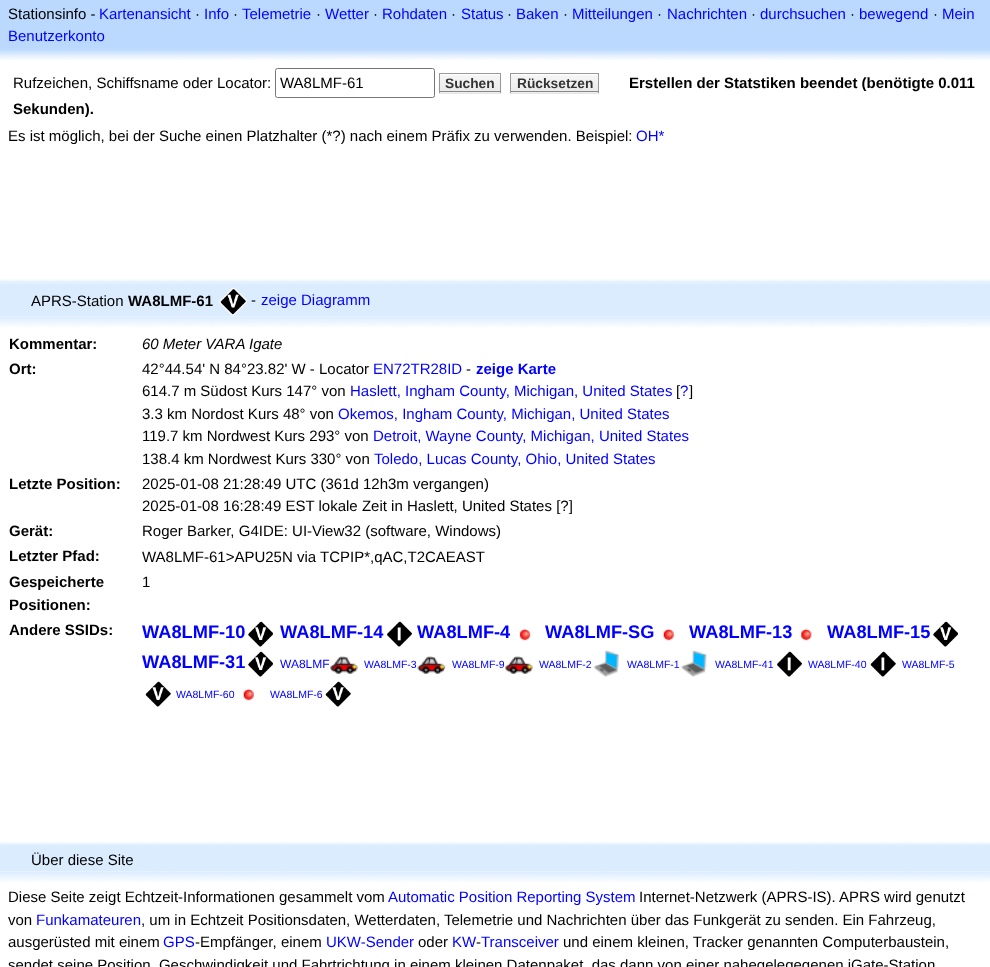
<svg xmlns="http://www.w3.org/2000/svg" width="990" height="967">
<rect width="100%" height="100%" fill="#fff"/>
<rect width="990" height="48" fill="#bbd9ff"/>
<text x="8" y="19" style="font-family:Liberation Sans;font-size:15px;fill:#000">Stationsinfo -</text>
<text x="99" y="19" style="font-family:Liberation Sans;font-size:15px;fill:#00f">Kartenansicht</text>
<text x="195" y="19" style="font-family:Liberation Sans;font-size:15px;fill:#000">·</text>
<text x="204" y="19" style="font-family:Liberation Sans;font-size:15px;fill:#00f">Info</text>
<text x="233" y="19" style="font-family:Liberation Sans;font-size:15px;fill:#000">·</text>
<text x="242" y="19" style="font-family:Liberation Sans;font-size:15px;fill:#00f">Telemetrie</text>
<text x="316" y="19" style="font-family:Liberation Sans;font-size:15px;fill:#000">·</text>
<text x="325" y="19" style="font-family:Liberation Sans;font-size:15px;fill:#00f">Wetter</text>
<text x="373" y="19" style="font-family:Liberation Sans;font-size:15px;fill:#000">·</text>
<text x="382" y="19" style="font-family:Liberation Sans;font-size:15px;fill:#00f">Rohdaten</text>
<text x="451" y="19" style="font-family:Liberation Sans;font-size:15px;fill:#000">·</text>
<text x="461" y="19" style="font-family:Liberation Sans;font-size:15px;fill:#00f">Status</text>
<text x="507" y="19" style="font-family:Liberation Sans;font-size:15px;fill:#000">·</text>
<text x="516" y="19" style="font-family:Liberation Sans;font-size:15px;fill:#00f">Baken</text>
<text x="563" y="19" style="font-family:Liberation Sans;font-size:15px;fill:#000">·</text>
<text x="572" y="19" style="font-family:Liberation Sans;font-size:15px;fill:#00f">Mitteilungen</text>
<text x="657" y="19" style="font-family:Liberation Sans;font-size:15px;fill:#000">·</text>
<text x="667" y="19" style="font-family:Liberation Sans;font-size:15px;fill:#00f">Nachrichten</text>
<text x="751" y="19" style="font-family:Liberation Sans;font-size:15px;fill:#000">·</text>
<text x="760" y="19" style="font-family:Liberation Sans;font-size:15px;fill:#00f">durchsuchen</text>
<text x="850" y="19" style="font-family:Liberation Sans;font-size:15px;fill:#000">·</text>
<text x="859" y="19" style="font-family:Liberation Sans;font-size:15px;fill:#00f">bewegend</text>
<text x="933" y="19" style="font-family:Liberation Sans;font-size:15px;fill:#000">·</text>
<text x="942" y="19" style="font-family:Liberation Sans;font-size:15px;fill:#00f">Mein</text>
<text x="8" y="41" style="font-family:Liberation Sans;font-size:15px;fill:#00f">Benutzerkonto</text>
<image x="0" y="48" width="990" height="12" href="media/1.png"/>
<text x="13" y="88" style="font-family:Liberation Sans;font-size:15px;fill:#000">Rufzeichen, Schiffsname oder Locator:</text>
<rect x="275.5" y="68.5" width="159" height="29" rx="2" fill="none" stroke="#767676"/>
<text x="280" y="88" style="font-family:Liberation Sans;font-size:15px;fill:#000">WA8LMF-61</text>
<rect x="439" y="93" width="62" height="1" fill="#e6e6e6"/>
<rect x="440" y="92" width="60" height="1" fill="#eee"/>
<image x="438" y="73" width="64" height="19" href="media/2.png"/>
<rect x="439" y="73" width="62" height="1" fill="#999"/>
<rect x="500" y="73" width="1" height="20" fill="#999"/>
<rect x="439" y="91" width="62" height="1" fill="#888"/>
<rect x="439" y="73" width="1" height="20" fill="#999"/>
<text x="445" y="88" style="font-family:Liberation Sans;font-size:13.75px;font-weight:bold;fill:#333">Suchen</text>
<path d="M510 92v2h89v-20v18z" fill="#e6e6e6"/>
<rect x="511" y="92" width="87" height="1" fill="#eee"/>
<image x="511" y="74" width="87" height="17" href="media/3.png"/>
<rect x="510" y="73" width="89" height="1" fill="#999"/>
<rect x="598" y="73" width="1" height="20" fill="#999"/>
<rect x="510" y="91" width="89" height="1" fill="#888"/>
<rect x="510" y="73" width="1" height="20" fill="#999"/>
<text x="517" y="88" style="font-family:Liberation Sans;font-size:13.75px;font-weight:bold;fill:#333">Rücksetzen</text>
<text x="629" y="88" style="font-family:Liberation Sans;font-size:15px;font-weight:bold;fill:#000">Erstellen der Statstiken beendet (benötigte 0.011</text>
<text x="13" y="114" style="font-family:Liberation Sans;font-size:15px;font-weight:bold;fill:#000">Sekunden).</text>
<text x="8" y="141" style="font-family:Liberation Sans;font-size:15px;fill:#000">Es ist möglich, bei der Suche einen Platzhalter (*?) nach einem Präfix zu verwenden. Beispiel:</text>
<text x="636" y="141" style="font-family:Liberation Sans;font-size:15px;fill:#00f">OH*</text>
<image x="0" y="279" width="990" height="5" href="media/4.png"/>
<rect y="284" width="990" height="32" fill="#dcecff"/>
<text x="31" y="306" style="font-family:Liberation Sans;font-size:15px;fill:#000">APRS-Station</text>
<text x="128" y="306" style="font-family:Liberation Sans;font-size:15px;font-weight:bold;fill:#000">WA8LMF-61</text>
<image x="219" y="287" width="28" height="29" href="media/5.png"/>
<text x="251" y="305" style="font-family:Liberation Sans;font-size:15px;fill:#000">-</text>
<text x="261" y="305" style="font-family:Liberation Sans;font-size:15px;fill:#00f">zeige Diagramm</text>
<image x="0" y="316" width="990" height="11" href="media/6.png"/>
<text x="9" y="349" style="font-family:Liberation Sans;font-size:15px;font-weight:bold;fill:#000">Kommentar:</text>
<text x="142" y="349" style="font-family:Liberation Sans;font-size:15px;font-style:italic;fill:#000">60 Meter VARA Igate</text>
<text x="9" y="374" style="font-family:Liberation Sans;font-size:15px;font-weight:bold;fill:#000">Ort:</text>
<text x="142" y="374" style="font-family:Liberation Sans;font-size:15px;fill:#000">42°44.54' N 84°23.82' W - Locator</text>
<text x="373" y="374" style="font-family:Liberation Sans;font-size:15px;fill:#00f">EN72TR28ID</text>
<text x="466" y="374" style="font-family:Liberation Sans;font-size:15px;fill:#000">-</text>
<text x="476" y="374" style="font-family:Liberation Sans;font-size:15px;font-weight:bold;fill:#00f">zeige Karte</text>
<text x="142" y="396" style="font-family:Liberation Sans;font-size:15px;fill:#000">614.7 m Südost Kurs 147° von</text>
<text x="350" y="396" style="font-family:Liberation Sans;font-size:15px;fill:#00f">Haslett, Ingham County, Michigan, United States</text>
<text x="676" y="396" style="font-family:Liberation Sans;font-size:15px;fill:#000">[</text>
<text x="680" y="396" style="font-family:Liberation Sans;font-size:15px;fill:#00f">?</text>
<text x="689" y="396" style="font-family:Liberation Sans;font-size:15px;fill:#000">]</text>
<text x="142" y="419" style="font-family:Liberation Sans;font-size:15px;fill:#000">3.3 km Nordost Kurs 48° von</text>
<text x="338" y="419" style="font-family:Liberation Sans;font-size:15px;fill:#00f">Okemos, Ingham County, Michigan, United States</text>
<text x="142" y="441" style="font-family:Liberation Sans;font-size:15px;fill:#000">119.7 km Nordwest Kurs 293° von</text>
<text x="373" y="441" style="font-family:Liberation Sans;font-size:15px;fill:#00f">Detroit, Wayne County, Michigan, United States</text>
<text x="142" y="464" style="font-family:Liberation Sans;font-size:15px;fill:#000">138.4 km Nordwest Kurs 330° von</text>
<text x="374" y="464" style="font-family:Liberation Sans;font-size:15px;fill:#00f">Toledo, Lucas County, Ohio, United States</text>
<text x="9" y="489" style="font-family:Liberation Sans;font-size:15px;font-weight:bold;fill:#000">Letzte Position:</text>
<text x="142" y="489" style="font-family:Liberation Sans;font-size:15px;fill:#000">2025-01-08 21:28:49 UTC (361d 12h3m vergangen)</text>
<text x="142" y="511" style="font-family:Liberation Sans;font-size:15px;fill:#000">2025-01-08 16:28:49 EST lokale Zeit in Haslett, United States [?]</text>
<text x="9" y="536" style="font-family:Liberation Sans;font-size:15px;font-weight:bold;fill:#000">Gerät:</text>
<text x="142" y="536" style="font-family:Liberation Sans;font-size:15px;fill:#000">Roger Barker, G4IDE: UI-View32 (software, Windows)</text>
<text x="9" y="561" style="font-family:Liberation Sans;font-size:15px;font-weight:bold;fill:#000">Letzter Pfad:</text>
<text x="142" y="562" style="font-family:Liberation Sans;font-size:15px;fill:#000">WA8LMF-61&gt;APU25N via TCPIP*,qAC,T2CAEAST</text>
<text x="9" y="587" style="font-family:Liberation Sans;font-size:15px;font-weight:bold;fill:#000">Gespeicherte</text>
<text x="9" y="610" style="font-family:Liberation Sans;font-size:15px;font-weight:bold;fill:#000">Positionen:</text>
<text x="142" y="587" style="font-family:Liberation Sans;font-size:15px;fill:#000">1</text>
<text x="9" y="635" style="font-family:Liberation Sans;font-size:15px;font-weight:bold;fill:#000">Andere SSIDs:</text>
<text x="142" y="638" style="font-family:Liberation Sans;font-size:18.25px;font-weight:bold;fill:#00f">WA8LMF-10</text>
<image x="248" y="621" width="25" height="26" href="media/7.png"/>
<text x="280" y="638" style="font-family:Liberation Sans;font-size:18.25px;font-weight:bold;fill:#00f">WA8LMF-14</text>
<image x="387" y="621" width="25" height="26" href="media/8.png"/>
<text x="417" y="638" style="font-family:Liberation Sans;font-size:18.25px;font-weight:bold;fill:#00f">WA8LMF-4</text>
<image x="519" y="628" width="12" height="13" href="media/9.png"/>
<text x="545" y="638" style="font-family:Liberation Sans;font-size:18.25px;font-weight:bold;fill:#00f">WA8LMF-SG</text>
<image x="663" y="628" width="11" height="13" href="media/10.png"/>
<text x="689" y="638" style="font-family:Liberation Sans;font-size:18.25px;font-weight:bold;fill:#00f">WA8LMF-13</text>
<image x="801" y="628" width="11" height="13" href="media/11.png"/>
<text x="827" y="638" style="font-family:Liberation Sans;font-size:18.25px;font-weight:bold;fill:#00f">WA8LMF-15</text>
<image x="933" y="621" width="25" height="26" href="media/12.png"/>
<text x="142" y="668" style="font-family:Liberation Sans;font-size:18.25px;font-weight:bold;fill:#00f">WA8LMF-31</text>
<image x="248" y="651" width="25" height="26" href="media/7.png"/>
<text x="280" y="668" style="font-family:Liberation Sans;font-size:12px;fill:#00f">WA8LMF</text>
<image x="330" y="656" width="28" height="18" href="media/13.png"/>
<text x="364" y="668" style="font-family:Liberation Sans;font-size:10.5px;fill:#00f">WA8LMF-3</text>
<image x="417" y="656" width="29" height="18" href="media/14.png"/>
<text x="452" y="668" style="font-family:Liberation Sans;font-size:10.5px;fill:#00f">WA8LMF-9</text>
<image x="505" y="656" width="28" height="18" href="media/15.png"/>
<text x="539" y="668" style="font-family:Liberation Sans;font-size:10.5px;fill:#00f">WA8LMF-2</text>
<image x="593" y="650" width="26" height="27" href="media/16.png"/>
<text x="627" y="668" style="font-family:Liberation Sans;font-size:10.5px;fill:#00f">WA8LMF-1</text>
<image x="681" y="650" width="26" height="27" href="media/17.png"/>
<text x="715" y="668" style="font-family:Liberation Sans;font-size:10.5px;fill:#00f">WA8LMF-41</text>
<image x="777" y="651" width="25" height="26" href="media/8.png"/>
<text x="808" y="668" style="font-family:Liberation Sans;font-size:10.5px;fill:#00f">WA8LMF-40</text>
<image x="870" y="651" width="26" height="26" href="media/18.png"/>
<text x="902" y="668" style="font-family:Liberation Sans;font-size:10.5px;fill:#00f">WA8LMF-5</text>
<image x="145" y="681" width="26" height="26" href="media/19.png"/>
<text x="176" y="698" style="font-family:Liberation Sans;font-size:10.5px;fill:#00f">WA8LMF-60</text>
<image x="243" y="688" width="11" height="13" href="media/10.png"/>
<text x="270" y="698" style="font-family:Liberation Sans;font-size:10.5px;fill:#00f">WA8LMF-6</text>
<image x="325" y="681" width="26" height="26" href="media/19.png"/>
<image x="0" y="842" width="990" height="4" href="media/20.png"/>
<rect y="846" width="990" height="25" fill="#dcecff"/>
<text x="31" y="865" style="font-family:Liberation Sans;font-size:15px;fill:#000">Über diese Site</text>
<image x="0" y="871" width="990" height="11" href="media/21.png"/>
<text x="8" y="902" style="font-family:Liberation Sans;font-size:15px;fill:#000">Diese Seite zeigt Echtzeit-Informationen gesammelt vom</text>
<text x="388" y="902" style="font-family:Liberation Sans;font-size:15px;fill:#00f">Automatic Position Reporting System</text>
<text x="639" y="902" style="font-family:Liberation Sans;font-size:15px;fill:#000">Internet-Netzwerk (APRS-IS). APRS wird genutzt</text>
<text x="8" y="925" style="font-family:Liberation Sans;font-size:15px;fill:#000">von</text>
<text x="36" y="925" style="font-family:Liberation Sans;font-size:15px;fill:#00f">Funkamateuren</text>
<text x="141" y="925" style="font-family:Liberation Sans;font-size:15px;fill:#000">, um in Echtzeit Positionsdaten, Wetterdaten, Telemetrie und Nachrichten über das Funkgerät zu senden. Ein Fahrzeug,</text>
<text x="8" y="947" style="font-family:Liberation Sans;font-size:15px;fill:#000">ausgerüsted mit einem</text>
<text x="163" y="947" style="font-family:Liberation Sans;font-size:15px;fill:#00f">GPS</text>
<text x="195" y="947" style="font-family:Liberation Sans;font-size:15px;fill:#000">-Empfänger, einem</text>
<text x="326" y="947" style="font-family:Liberation Sans;font-size:15px;fill:#00f">UKW-Sender</text>
<text x="418" y="947" style="font-family:Liberation Sans;font-size:15px;fill:#000">oder</text>
<text x="452" y="947" style="font-family:Liberation Sans;font-size:15px;fill:#00f">KW</text>
<text x="476" y="947" style="font-family:Liberation Sans;font-size:15px;fill:#000">-</text>
<text x="481" y="947" style="font-family:Liberation Sans;font-size:15px;fill:#00f">Transceiver</text>
<text x="563" y="947" style="font-family:Liberation Sans;font-size:15px;fill:#000">und einem kleinen, Tracker genannten Computerbaustein,</text>
<text x="8" y="970" style="font-family:Liberation Sans;font-size:15px;fill:#000">sendet seine Position, Geschwindigkeit und Fahrtrichtung in einem kleinen Datenpaket, das dann von einer nahegelegegenen iGate-Station</text>
</svg>
